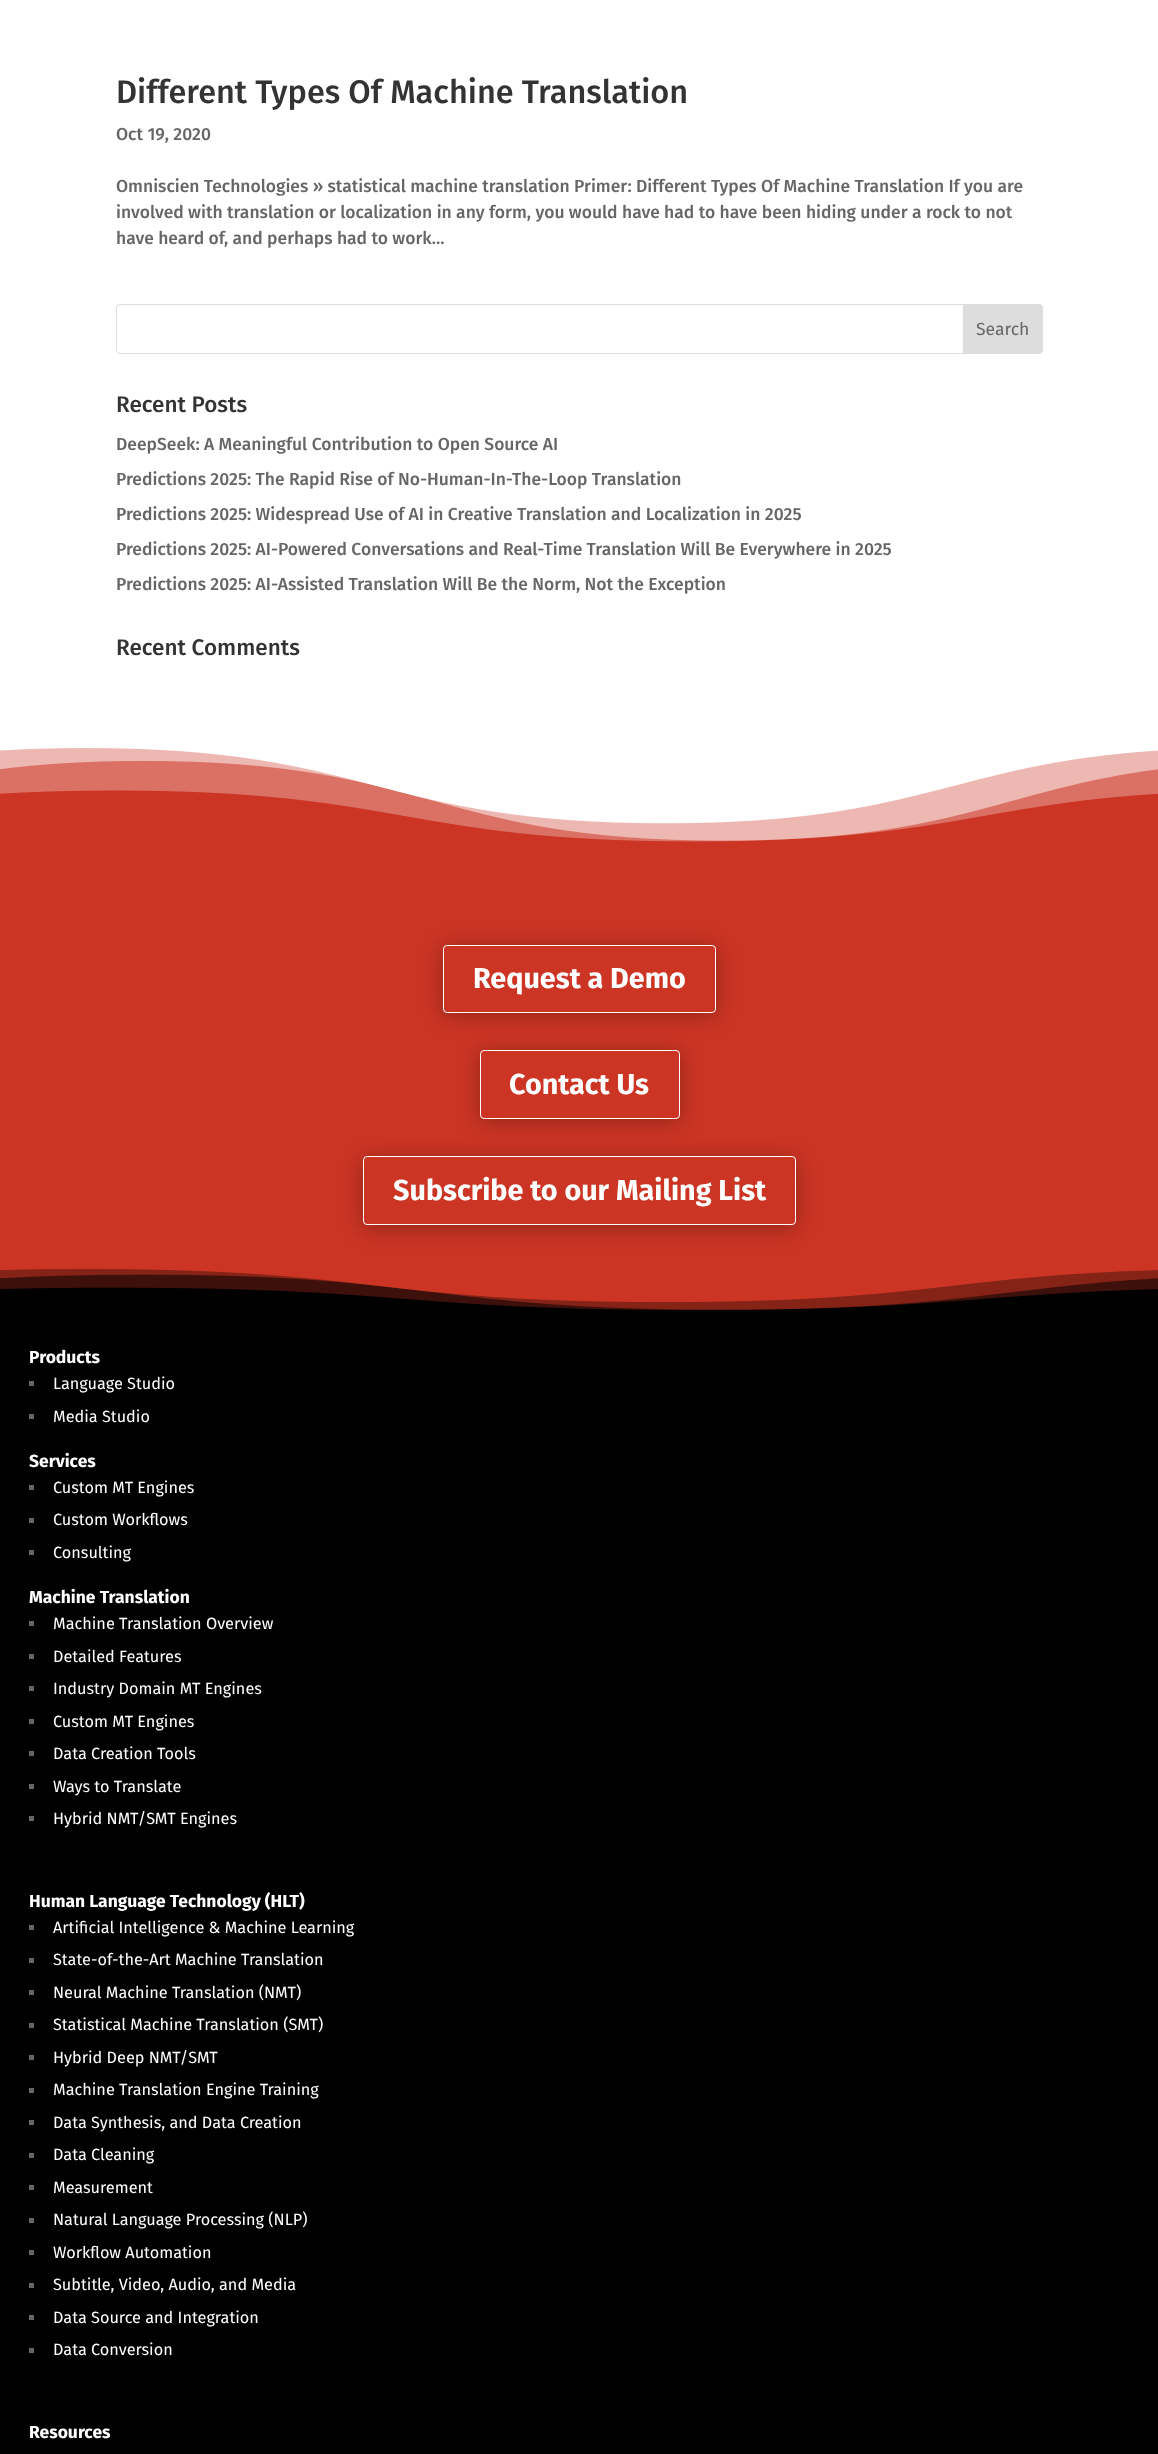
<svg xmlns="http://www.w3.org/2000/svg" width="1158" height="2454">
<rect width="100%" height="100%" fill="#fff"/>
<text x="116" y="103" style="font-family:Fira Sans;font-size:32.5px;font-weight:500;fill:#333">Different Types Of Machine Translation</text>
<text x="116" y="140" style="font-family:Fira Sans;font-size:17.5px;font-weight:500;fill:#666">Oct 19, 2020</text>
<text x="116" y="192" style="font-family:Fira Sans;font-size:17.5px;font-weight:500;fill:#666">Omniscien Technologies » statistical machine translation Primer: Different Types Of Machine Translation If you are</text>
<text x="116" y="218" style="font-family:Fira Sans;font-size:17.5px;font-weight:500;fill:#666">involved with translation or localization in any form, you would have had to have been hiding under a rock to not</text>
<text x="116" y="244" style="font-family:Fira Sans;font-size:17.5px;font-weight:500;fill:#666">have heard of, and perhaps had to work...</text>
<rect x="116.5" y="304.5" width="926" height="49" rx="3.5" fill="none" stroke="#ddd"/>
<path d="M963.5 304.5h75.5c2 0 3.5 1.5 3.5 3.5v42c0 2-1.5 3.5-3.5 3.5h-75.5z" fill="#ddd" stroke="#ddd"/>
<text x="976" y="335" style="font-family:Fira Sans;font-size:17.5px;fill:#666">Search</text>
<text x="116" y="412" style="font-family:Fira Sans;font-size:22.5px;font-weight:500;fill:#333">Recent Posts</text>
<text x="116" y="450" style="font-family:Fira Sans;font-size:17.5px;font-weight:500;fill:#666">DeepSeek: A Meaningful Contribution to Open Source AI</text>
<text x="116" y="485" style="font-family:Fira Sans;font-size:17.5px;font-weight:500;fill:#666">Predictions 2025: The Rapid Rise of No-Human-In-The-Loop Translation</text>
<text x="116" y="520" style="font-family:Fira Sans;font-size:17.5px;font-weight:500;fill:#666">Predictions 2025: Widespread Use of AI in Creative Translation and Localization in 2025</text>
<text x="116" y="555" style="font-family:Fira Sans;font-size:17.5px;font-weight:500;fill:#666">Predictions 2025: AI-Powered Conversations and Real-Time Translation Will Be Everywhere in 2025</text>
<text x="116" y="590" style="font-family:Fira Sans;font-size:17.5px;font-weight:500;fill:#666">Predictions 2025: AI-Assisted Translation Will Be the Norm, Not the Exception</text>
<text x="116" y="655" style="font-family:Fira Sans;font-size:22.5px;font-weight:500;fill:#333">Recent Comments</text>
<rect y="748" width="1158" height="521" fill="#cc3524"/>
<image x="0" y="748" width="1158" height="94" href="media/1.png"/>
<rect x="443" y="948" width="273" height="67" rx="4" fill="#0000004d" filter="blur(11px)"/>
<rect x="443.5" y="945.5" width="272" height="67" rx="3.5" fill="#cc3524" stroke="#fff"/>
<text x="473" y="988" style="font-family:Fira Sans;font-size:28.75px;font-weight:bold;fill:#fff">Request a Demo</text>
<rect x="480" y="1053" width="200" height="68" rx="4" fill="#0000004d" filter="blur(11px)"/>
<rect x="480.5" y="1050.5" width="199" height="68" rx="3.5" fill="#cc3524" stroke="#fff"/>
<text x="509" y="1094" style="font-family:Fira Sans;font-size:28.75px;font-weight:bold;fill:#fff">Contact Us</text>
<rect x="363" y="1159" width="433" height="69" rx="4" fill="#0000004d" filter="blur(11px)"/>
<rect x="363.5" y="1156.5" width="432" height="68" rx="3.5" fill="#cc3524" stroke="#fff"/>
<text x="393" y="1200" style="font-family:Fira Sans;font-size:28.75px;font-weight:bold;fill:#fff">Subscribe to our Mailing List</text>
<rect y="1269" width="1158" height="1185" fill="#000"/>
<image x="0" y="1269" width="1158" height="41" href="media/2.png"/>
<text x="29" y="1363" style="font-family:Fira Sans;font-size:17.5px;font-weight:bold;fill:#fff">Products</text>
<rect x="29" y="1381" width="5" height="5" fill="#666"/>
<text x="53" y="1389" style="font-family:Fira Sans;font-size:16.25px;fill:#fff">Language Studio</text>
<rect x="29" y="1414" width="5" height="5" fill="#666"/>
<text x="53" y="1422" style="font-family:Fira Sans;font-size:16.25px;fill:#fff">Media Studio</text>
<text x="29" y="1467" style="font-family:Fira Sans;font-size:17.5px;font-weight:bold;fill:#fff">Services</text>
<rect x="29" y="1485" width="5" height="5" fill="#666"/>
<text x="53" y="1493" style="font-family:Fira Sans;font-size:16.25px;fill:#fff">Custom MT Engines</text>
<rect x="29" y="1518" width="5" height="5" fill="#666"/>
<text x="53" y="1525" style="font-family:Fira Sans;font-size:16.25px;fill:#fff">Custom Workflows</text>
<rect x="29" y="1550" width="5" height="5" fill="#666"/>
<text x="53" y="1558" style="font-family:Fira Sans;font-size:16.25px;fill:#fff">Consulting</text>
<text x="29" y="1603" style="font-family:Fira Sans;font-size:17.5px;font-weight:bold;fill:#fff">Machine Translation</text>
<rect x="29" y="1621" width="5" height="5" fill="#666"/>
<text x="53" y="1629" style="font-family:Fira Sans;font-size:16.25px;fill:#fff">Machine Translation Overview</text>
<rect x="29" y="1654" width="5" height="5" fill="#666"/>
<text x="53" y="1662" style="font-family:Fira Sans;font-size:16.25px;fill:#fff">Detailed Features</text>
<rect x="29" y="1686" width="5" height="5" fill="#666"/>
<text x="53" y="1694" style="font-family:Fira Sans;font-size:16.25px;fill:#fff">Industry Domain MT Engines</text>
<rect x="29" y="1719" width="5" height="5" fill="#666"/>
<text x="53" y="1727" style="font-family:Fira Sans;font-size:16.25px;fill:#fff">Custom MT Engines</text>
<rect x="29" y="1751" width="5" height="5" fill="#666"/>
<text x="53" y="1759" style="font-family:Fira Sans;font-size:16.25px;fill:#fff">Data Creation Tools</text>
<rect x="29" y="1784" width="5" height="5" fill="#666"/>
<text x="53" y="1792" style="font-family:Fira Sans;font-size:16.25px;fill:#fff">Ways to Translate</text>
<rect x="29" y="1816" width="5" height="5" fill="#666"/>
<text x="53" y="1824" style="font-family:Fira Sans;font-size:16.25px;fill:#fff">Hybrid NMT/SMT Engines</text>
<text x="29" y="1907" style="font-family:Fira Sans;font-size:17.5px;font-weight:bold;fill:#fff">Human Language Technology (HLT)</text>
<rect x="29" y="1925" width="5" height="5" fill="#666"/>
<text x="53" y="1933" style="font-family:Fira Sans;font-size:16.25px;fill:#fff">Artificial Intelligence &amp; Machine Learning</text>
<rect x="29" y="1958" width="5" height="5" fill="#666"/>
<text x="53" y="1965" style="font-family:Fira Sans;font-size:16.25px;fill:#fff">State-of-the-Art Machine Translation</text>
<rect x="29" y="1990" width="5" height="5" fill="#666"/>
<text x="53" y="1998" style="font-family:Fira Sans;font-size:16.25px;fill:#fff">Neural Machine Translation (NMT)</text>
<rect x="29" y="2023" width="5" height="5" fill="#666"/>
<text x="53" y="2030" style="font-family:Fira Sans;font-size:16.25px;fill:#fff">Statistical Machine Translation (SMT)</text>
<rect x="29" y="2055" width="5" height="5" fill="#666"/>
<text x="53" y="2063" style="font-family:Fira Sans;font-size:16.25px;fill:#fff">Hybrid Deep NMT/SMT</text>
<rect x="29" y="2088" width="5" height="5" fill="#666"/>
<text x="53" y="2095" style="font-family:Fira Sans;font-size:16.25px;fill:#fff">Machine Translation Engine Training</text>
<rect x="29" y="2120" width="5" height="5" fill="#666"/>
<text x="53" y="2128" style="font-family:Fira Sans;font-size:16.25px;fill:#fff">Data Synthesis, and Data Creation</text>
<rect x="29" y="2153" width="5" height="5" fill="#666"/>
<text x="53" y="2160" style="font-family:Fira Sans;font-size:16.25px;fill:#fff">Data Cleaning</text>
<rect x="29" y="2185" width="5" height="5" fill="#666"/>
<text x="53" y="2193" style="font-family:Fira Sans;font-size:16.25px;fill:#fff">Measurement</text>
<rect x="29" y="2218" width="5" height="5" fill="#666"/>
<text x="53" y="2225" style="font-family:Fira Sans;font-size:16.25px;fill:#fff">Natural Language Processing (NLP)</text>
<rect x="29" y="2250" width="5" height="5" fill="#666"/>
<text x="53" y="2258" style="font-family:Fira Sans;font-size:16.25px;fill:#fff">Workflow Automation</text>
<rect x="29" y="2283" width="5" height="5" fill="#666"/>
<text x="53" y="2290" style="font-family:Fira Sans;font-size:16.25px;fill:#fff">Subtitle, Video, Audio, and Media</text>
<rect x="29" y="2315" width="5" height="5" fill="#666"/>
<text x="53" y="2323" style="font-family:Fira Sans;font-size:16.25px;fill:#fff">Data Source and Integration</text>
<rect x="29" y="2348" width="5" height="5" fill="#666"/>
<text x="53" y="2355" style="font-family:Fira Sans;font-size:16.25px;fill:#fff">Data Conversion</text>
<text x="29" y="2438" style="font-family:Fira Sans;font-size:17.5px;font-weight:bold;fill:#fff">Resources</text>
</svg>
